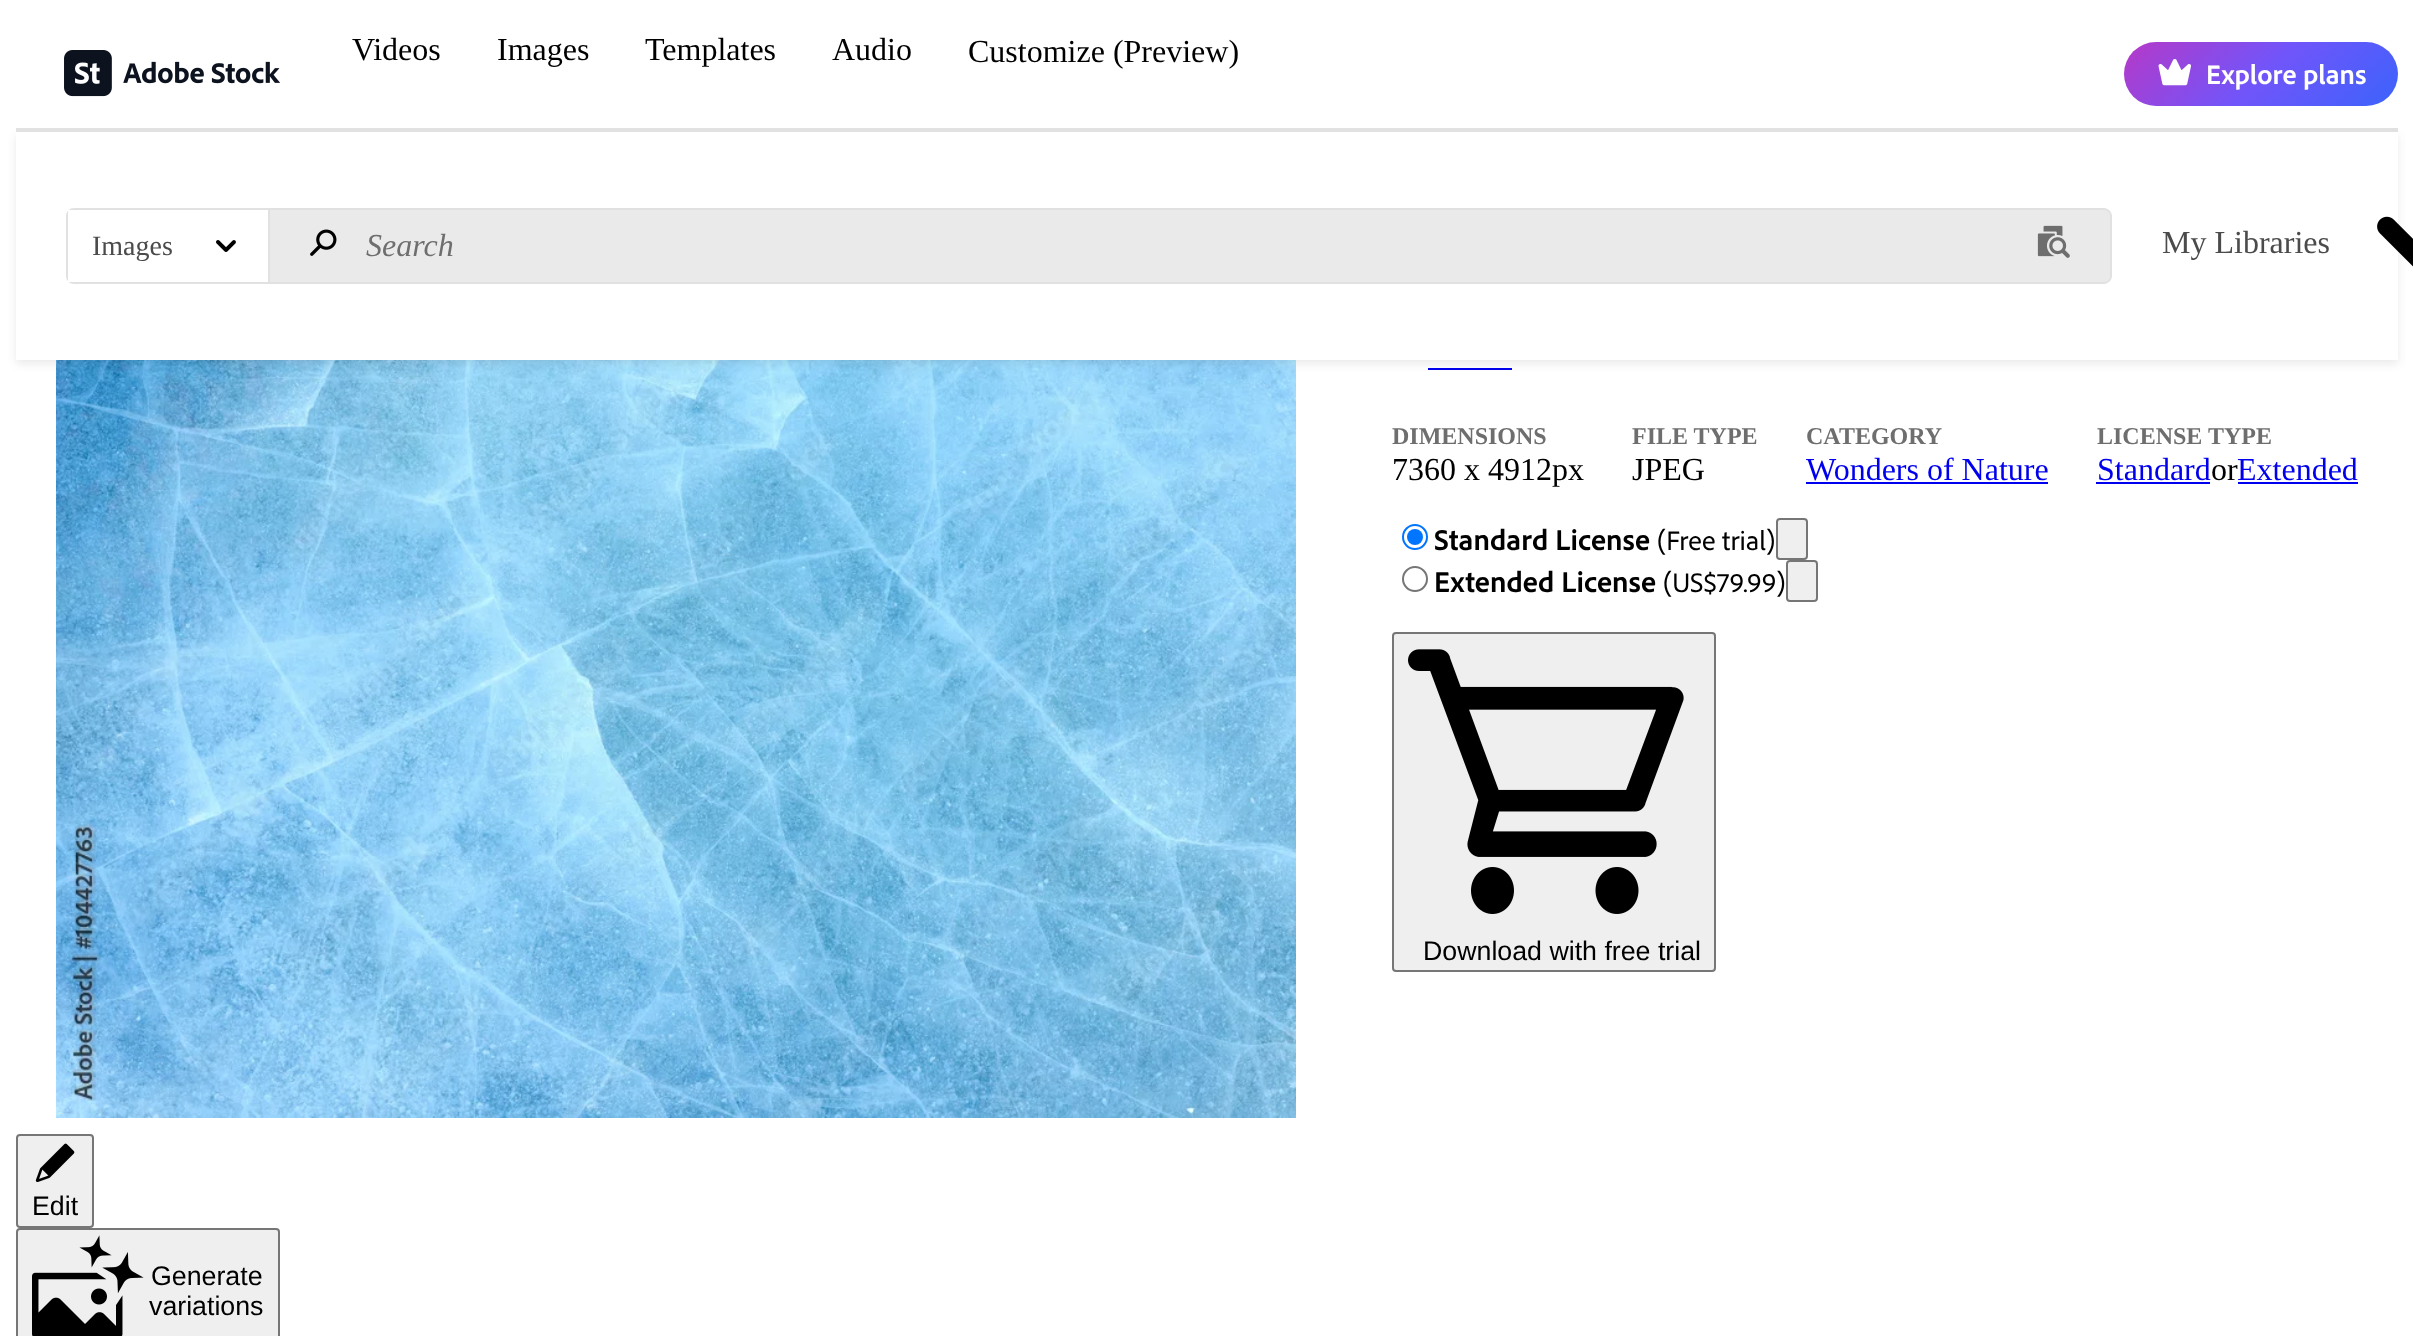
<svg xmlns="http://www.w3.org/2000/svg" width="2413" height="1336">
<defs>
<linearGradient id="g1" gradientUnits="userSpaceOnUse" x1="2177" y1="-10" x2="2346" y2="159"><stop offset="0" stop-color="#b539c8"/><stop offset="0.5" stop-color="#7155fa"/><stop offset="1" stop-color="#3b63fb"/></linearGradient>
</defs>
<rect width="100%" height="100%" fill="#fff"/>
<rect x="1428" y="368" width="84" height="2" fill="#00e"/>
<image x="56" y="360" width="1240" height="758" href="media/8.png"/>
<rect x="16" y="136" width="2382" height="228" fill="#3434341a" filter="blur(4px)"/>
<rect x="16" y="128" width="2382" height="4" fill="#e1e1e1"/>
<image x="64" y="50" width="216" height="47" href="media/1.png"/>
<text x="352" y="60" style="font-family:Liberation Serif;font-size:32px;fill:#000">Videos</text>
<text x="497" y="60" style="font-family:Liberation Serif;font-size:32px;fill:#000">Images</text>
<text x="645" y="60" style="font-family:Liberation Serif;font-size:32px;fill:#000">Templates</text>
<text x="832" y="60" style="font-family:Liberation Serif;font-size:32px;fill:#000">Audio</text>
<text x="968" y="62" style="font-family:Liberation Serif;font-size:32px;fill:#000">Customize (Preview)</text>
<rect x="2124" y="42" width="274" height="64" rx="32" fill="url(#g1)"/>
<image x="2158" y="59" width="33" height="27" href="media/2.png"/>
<text x="2206" y="84" style="font-family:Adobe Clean;font-size:28px;font-weight:bold;fill:#fff">Explore plans</text>
<rect x="16" y="132" width="2382" height="228" fill="#fff"/>
<path d="M74 209h195v74h-195c-4 0-7-3-7-7v-60c0-4 3-7 7-7z" fill="none" stroke="#e1e1e1" stroke-width="2"/>
<rect x="68" y="210" width="5" height="72" fill="#fff"/>
<text x="92" y="255" style="font-family:Liberation Serif;font-size:28px;fill:#4b4b4b">Images</text>
<image x="216" y="240" width="20" height="12" href="media/3.png"/>
<path d="M270 210h1834c3.5 0 6 2.5 6 6v60c0 3.5-2.5 6-6 6h-1834z" fill="#eaeaea"/>
<path d="M270 208h1834c4 0 8 4 8 8v60c0 4-4 8-8 8h-1834zm0 2h1834c3 0 6 3 6 6v60c0 3-3 6-6 6h-1834z" fill="#e1e1e1" fill-rule="evenodd"/>
<image x="310" y="229" width="27" height="27" href="media/4.png"/>
<text x="366" y="256" style="font-family:Liberation Serif;font-size:32px;font-style:italic;fill:#6e6e6e">Search</text>
<image x="2037" y="225" width="33" height="33" href="media/5.png"/>
<text x="2162" y="253" style="font-family:Liberation Serif;font-size:32px;fill:#4b4b4b">My Libraries</text>
<image x="2377" y="216" width="36" height="51" href="media/6.png"/>
<text x="1392" y="444" style="font-family:Liberation Serif;font-size:24px;font-weight:bold;fill:#6e6e6e">DIMENSIONS</text>
<text x="1392" y="480" style="font-family:Liberation Serif;font-size:32px;fill:#000">7360 x 4912px</text>
<text x="1632" y="444" style="font-family:Liberation Serif;font-size:24px;font-weight:bold;fill:#6e6e6e">FILE TYPE</text>
<text x="1632" y="480" style="font-family:Liberation Serif;font-size:32px;fill:#000">JPEG</text>
<text x="1806" y="444" style="font-family:Liberation Serif;font-size:24px;font-weight:bold;fill:#6e6e6e">CATEGORY</text>
<text x="1806" y="480" style="font-family:Liberation Serif;font-size:32px;fill:#00e">Wonders of Nature</text>
<rect x="1806" y="482" width="242" height="2" fill="#00e"/>
<text x="2097" y="444" style="font-family:Liberation Serif;font-size:24px;font-weight:bold;fill:#6e6e6e">LICENSE TYPE</text>
<text x="2097" y="480" style="font-family:Liberation Serif;font-size:32px;fill:#00e">Standard</text>
<text x="2211" y="480" style="font-family:Liberation Serif;font-size:32px;fill:#000">or</text>
<rect x="2096" y="482" width="114" height="2" fill="#00e"/>
<rect x="2238" y="482" width="120" height="2" fill="#00e"/>
<text x="2237" y="480" style="font-family:Liberation Serif;font-size:32px;fill:#00e">Extended</text>
<circle cx="1415" cy="537" r="12" fill="none" stroke="#0075ff" stroke-width="2"/>
<circle cx="1415" cy="537" r="8" fill="#0075ff"/>
<text x="1434" y="550" style="font-family:Adobe Clean;font-size:30px;font-weight:bold;fill:#000">Standard License</text>
<text x="1657" y="550" style="font-family:Adobe Clean;font-size:28px;fill:#000">(Free trial)</text>
<rect x="1777" y="519" width="30" height="40" rx="3" fill="#efefef" stroke="#767676" stroke-width="2"/>
<circle cx="1415" cy="579" r="12" fill="none" stroke="#767676" stroke-width="2"/>
<text x="1434" y="592" style="font-family:Adobe Clean;font-size:30px;font-weight:bold;fill:#000">Extended License</text>
<text x="1663" y="592" style="font-family:Adobe Clean;font-size:28px;fill:#000">(US$79.99)</text>
<rect x="1787" y="561" width="30" height="40" rx="3" fill="#efefef" stroke="#767676" stroke-width="2"/>
<rect x="1393" y="633" width="322" height="338" rx="3" fill="#efefef" stroke="#767676" stroke-width="2"/>
<image x="1408" y="649" width="276" height="265" href="media/7.png"/>
<text x="1423" y="960" style="font-family:Liberation Sans;font-size:26.75px;fill:#000">Download with free trial</text>
<rect x="17" y="1135" width="76" height="92" rx="3" fill="#efefef" stroke="#767676" stroke-width="2"/>
<image x="35" y="1143" width="40" height="39" href="media/9.png"/>
<text x="32" y="1215" style="font-family:Liberation Sans;font-size:26.75px;fill:#000">Edit</text>
<rect x="17" y="1229" width="262" height="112" rx="3" fill="#efefef" stroke="#767676" stroke-width="2"/>
<image x="32" y="1235" width="112" height="101" href="media/10.png"/>
<text x="151" y="1285" style="font-family:Liberation Sans;font-size:26.75px;fill:#000">Generate</text>
<text x="149" y="1315" style="font-family:Liberation Sans;font-size:26.75px;fill:#000">variations</text>
</svg>
